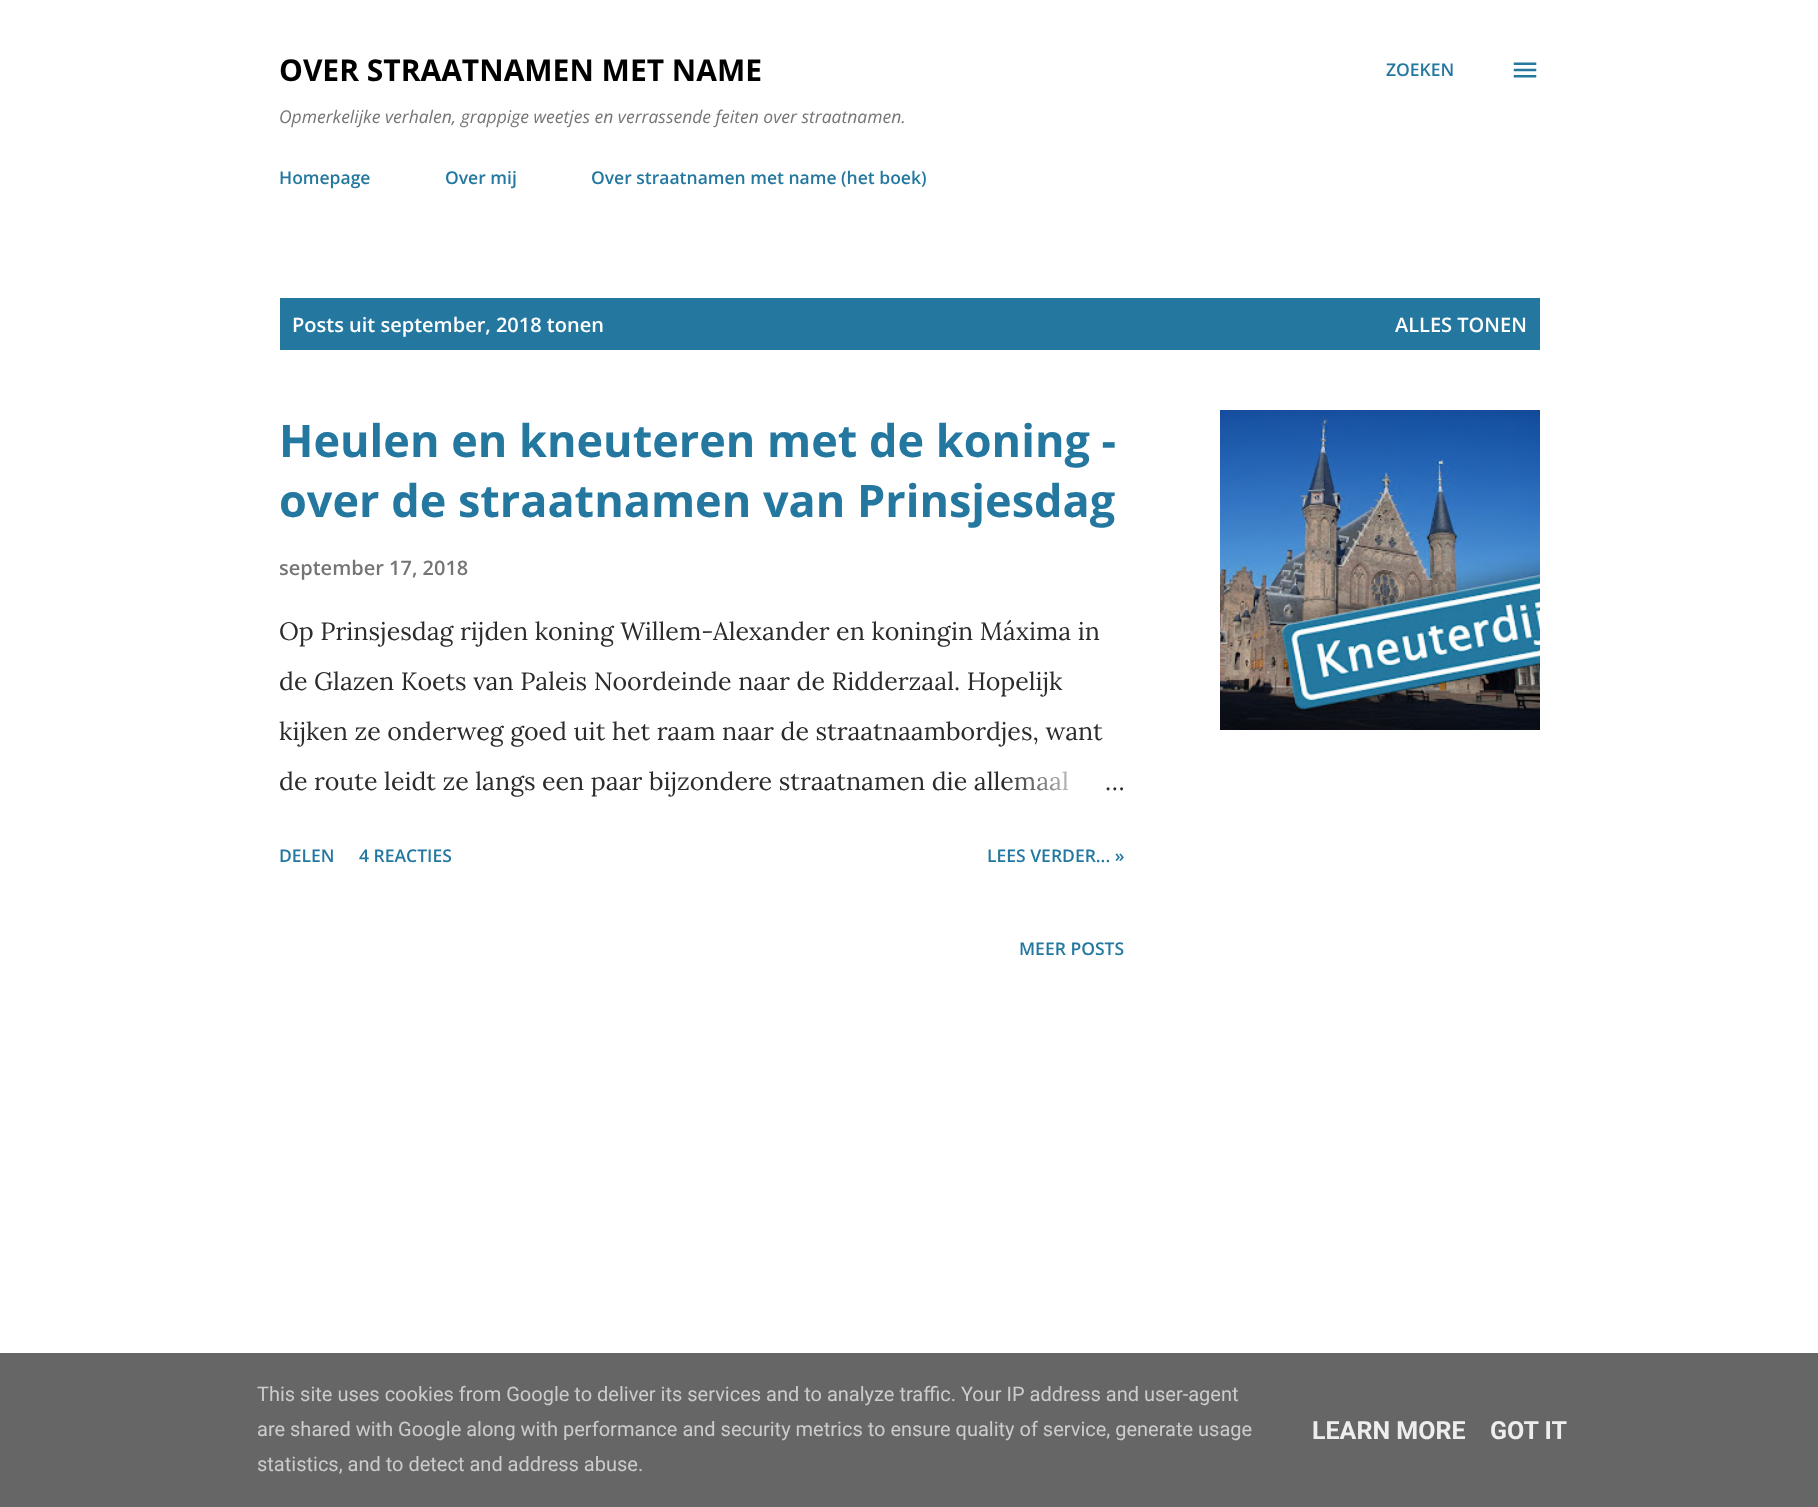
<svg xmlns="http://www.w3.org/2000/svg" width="1818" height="1507">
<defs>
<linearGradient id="g1" gradientUnits="userSpaceOnUse" x1="1125" y1="781" x2="1005" y2="781"><stop offset="0" stop-color="#fff"/><stop offset="0.2" stop-color="#fff"/><stop offset="1" stop-color="#fff" stop-opacity="0"/></linearGradient>
</defs>
<rect width="100%" height="100%" fill="#fff"/>
<text x="279" y="81" style="font-family:Open Sans;font-size:30px;font-weight:bold;fill:#000">OVER STRAATNAMEN MET NAME</text>
<text x="279" y="123" style="font-family:Open Sans;font-size:17.5px;font-style:italic;fill:#757575">Opmerkelijke verhalen, grappige weetjes en verrassende feiten over straatnamen.</text>
<text x="1386" y="76" style="font-family:Open Sans;font-size:17.5px;font-weight:600;fill:#2478a0">ZOEKEN</text>
<image x="1513" y="62" width="24" height="16" href="media/1.png"/>
<text x="279" y="184" style="font-family:Open Sans;font-size:17.5px;font-weight:600;fill:#2478a0">Homepage</text>
<text x="445" y="184" style="font-family:Open Sans;font-size:17.5px;font-weight:600;fill:#2478a0">Over mij</text>
<text x="591" y="184" style="font-family:Open Sans;font-size:17.5px;font-weight:600;fill:#2478a0">Over straatnamen met name (het boek)</text>
<rect x="280" y="298" width="1260" height="52" fill="#2478a0"/>
<text x="292" y="332" style="font-family:Open Sans;font-size:20px;font-weight:600;fill:#fff">Posts uit september, 2018 tonen</text>
<text x="1395" y="332" style="font-family:Open Sans;font-size:20px;font-weight:600;fill:#fff">ALLES TONEN</text>
<text x="279" y="457" style="font-family:Open Sans;font-size:45px;font-weight:bold;fill:#2478a0">Heulen en kneuteren met de koning -</text>
<text x="279" y="517" style="font-family:Open Sans;font-size:45px;font-weight:bold;fill:#2478a0">over de straatnamen van Prinsjesdag</text>
<text x="279" y="575" style="font-family:Open Sans;font-size:20px;font-weight:600;fill:#757575">september 17, 2018</text>
<text x="279" y="640" style="font-family:Lora;font-size:25px;fill:#2b2b2b">Op Prinsjesdag rijden koning Willem-Alexander en koningin Máxima in</text>
<text x="279" y="690" style="font-family:Lora;font-size:25px;fill:#2b2b2b">de Glazen Koets van Paleis Noordeinde naar de Ridderzaal. Hopelijk</text>
<text x="279" y="740" style="font-family:Lora;font-size:25px;fill:#2b2b2b">kijken ze onderweg goed uit het raam naar de straatnaambordjes, want</text>
<text x="279" y="790" style="font-family:Lora;font-size:25px;fill:#2b2b2b">de route leidt ze langs een paar bijzondere straatnamen die allemaal</text>
<rect x="1007" y="771" width="62" height="20" fill="url(#g1)"/>
<text x="1105" y="790" style="font-family:Lora;font-size:25px;fill:#2b2b2b">…</text>
<text x="279" y="862" style="font-family:Open Sans;font-size:17.5px;font-weight:600;fill:#2478a0">DELEN</text>
<text x="359" y="862" style="font-family:Open Sans;font-size:17.5px;font-weight:600;fill:#2478a0">4 REACTIES</text>
<text x="987" y="862" style="font-family:Open Sans;font-size:17.5px;font-weight:600;fill:#2478a0">LEES VERDER... »</text>
<image x="1220" y="410" width="320" height="320" href="media/2.png"/>
<text x="1019" y="955" style="font-family:Open Sans;font-size:17.5px;font-weight:600;fill:#2478a0">MEER POSTS</text>
<rect y="1353" width="1818" height="154" fill="#666"/>
<text x="257" y="1401" style="font-family:Roboto;font-size:20px;fill:#ccc">This site uses cookies from Google to deliver its services and to analyze traffic. Your IP address and user-agent</text>
<text x="257" y="1436" style="font-family:Roboto;font-size:20px;fill:#ccc">are shared with Google along with performance and security metrics to ensure quality of service, generate usage</text>
<text x="257" y="1471" style="font-family:Roboto;font-size:20px;fill:#ccc">statistics, and to detect and address abuse.</text>
<text x="1312" y="1439" style="font-family:Roboto;font-size:25px;font-weight:bold;fill:#eee">LEARN MORE</text>
<text x="1490" y="1439" style="font-family:Roboto;font-size:25px;font-weight:bold;fill:#eee">GOT IT</text>
</svg>
